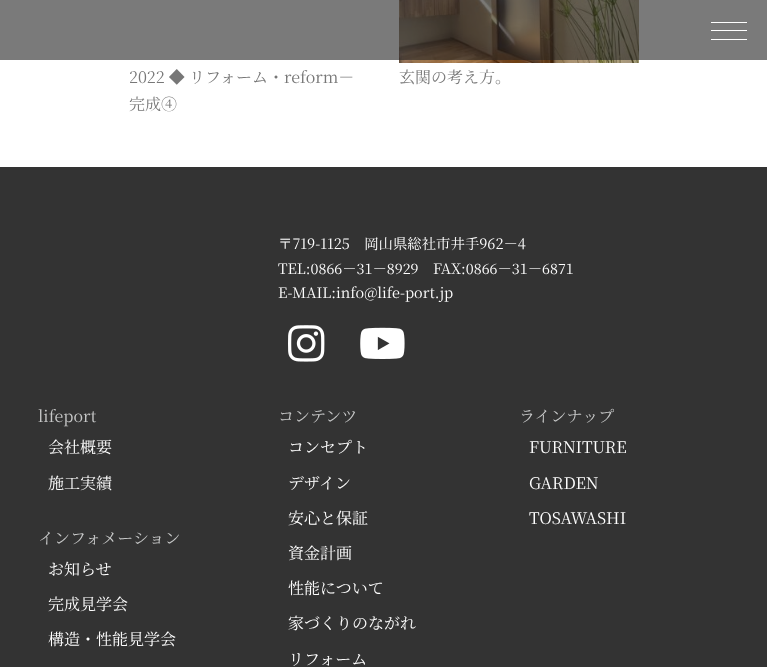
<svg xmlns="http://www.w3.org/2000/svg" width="767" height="667">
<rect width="100%" height="100%" fill="#fff"/>
<rect width="767" height="60" fill="#7a7a7a"/>
<rect x="711" y="22" width="36" height="1" fill="#fff"/>
<rect x="711" y="30" width="36" height="1" fill="#fff"/>
<rect x="711" y="39" width="36" height="1" fill="#fff"/>
<text x="129" y="83" style="font-family:Noto Serif JP;font-size:16px;fill:#777">2022 ◆ リフォーム・reform－</text>
<text x="129" y="110" style="font-family:Noto Serif JP;font-size:16px;fill:#777">完成④</text>
<image x="399" y="0" width="240" height="63" href="media/1.png"/>
<text x="399" y="83" style="font-family:Noto Serif JP;font-size:16px;fill:#777">玄関の考え方。</text>
<rect y="167" width="767" height="500" fill="#333"/>
<text x="278" y="249" style="font-family:Noto Serif JP;font-size:14.4px;fill:#fff">〒719-1125　岡山県総社市井手962－4</text>
<text x="278" y="274" style="font-family:Noto Serif JP;font-size:14.4px;fill:#fff">TEL:0866－31－8929　FAX:0866－31－6871</text>
<text x="278" y="298" style="font-family:Noto Serif JP;font-size:14.4px;fill:#fff">E-MAIL:info@life-port.jp</text>
<image x="288" y="325" width="37" height="37" href="media/2.png"/>
<image x="360" y="327" width="45" height="32" href="media/3.png"/>
<text x="38" y="422" style="font-family:Noto Serif JP;font-size:16px;fill:#c7c8c8">lifeport</text>
<text x="48" y="453" style="font-family:Noto Serif JP;font-size:16px;fill:#fff">会社概要</text>
<text x="48" y="489" style="font-family:Noto Serif JP;font-size:16px;fill:#fff">施工実績</text>
<text x="38" y="544" style="font-family:Noto Serif JP;font-size:16px;fill:#c7c8c8">インフォメーション</text>
<text x="48" y="575" style="font-family:Noto Serif JP;font-size:16px;fill:#fff">お知らせ</text>
<text x="48" y="610" style="font-family:Noto Serif JP;font-size:16px;fill:#fff">完成見学会</text>
<text x="48" y="645" style="font-family:Noto Serif JP;font-size:16px;fill:#fff">構造・性能見学会</text>
<text x="278" y="422" style="font-family:Noto Serif JP;font-size:16px;fill:#c7c8c8">コンテンツ</text>
<text x="288" y="453" style="font-family:Noto Serif JP;font-size:16px;fill:#fff">コンセプト</text>
<text x="288" y="489" style="font-family:Noto Serif JP;font-size:16px;fill:#fff">デザイン</text>
<text x="288" y="524" style="font-family:Noto Serif JP;font-size:16px;fill:#fff">安心と保証</text>
<text x="288" y="559" style="font-family:Noto Serif JP;font-size:16px;fill:#fff">資金計画</text>
<text x="288" y="594" style="font-family:Noto Serif JP;font-size:16px;fill:#fff">性能について</text>
<text x="288" y="629" style="font-family:Noto Serif JP;font-size:16px;fill:#fff">家づくりのながれ</text>
<text x="288" y="665" style="font-family:Noto Serif JP;font-size:16px;fill:#fff">リフォーム</text>
<text x="519" y="422" style="font-family:Noto Serif JP;font-size:16px;fill:#c7c8c8">ラインナップ</text>
<text x="529" y="453" style="font-family:Noto Serif JP;font-size:16px;fill:#fff">FURNITURE</text>
<text x="529" y="489" style="font-family:Noto Serif JP;font-size:16px;fill:#fff">GARDEN</text>
<text x="529" y="524" style="font-family:Noto Serif JP;font-size:16px;fill:#fff">TOSAWASHI</text>
</svg>
